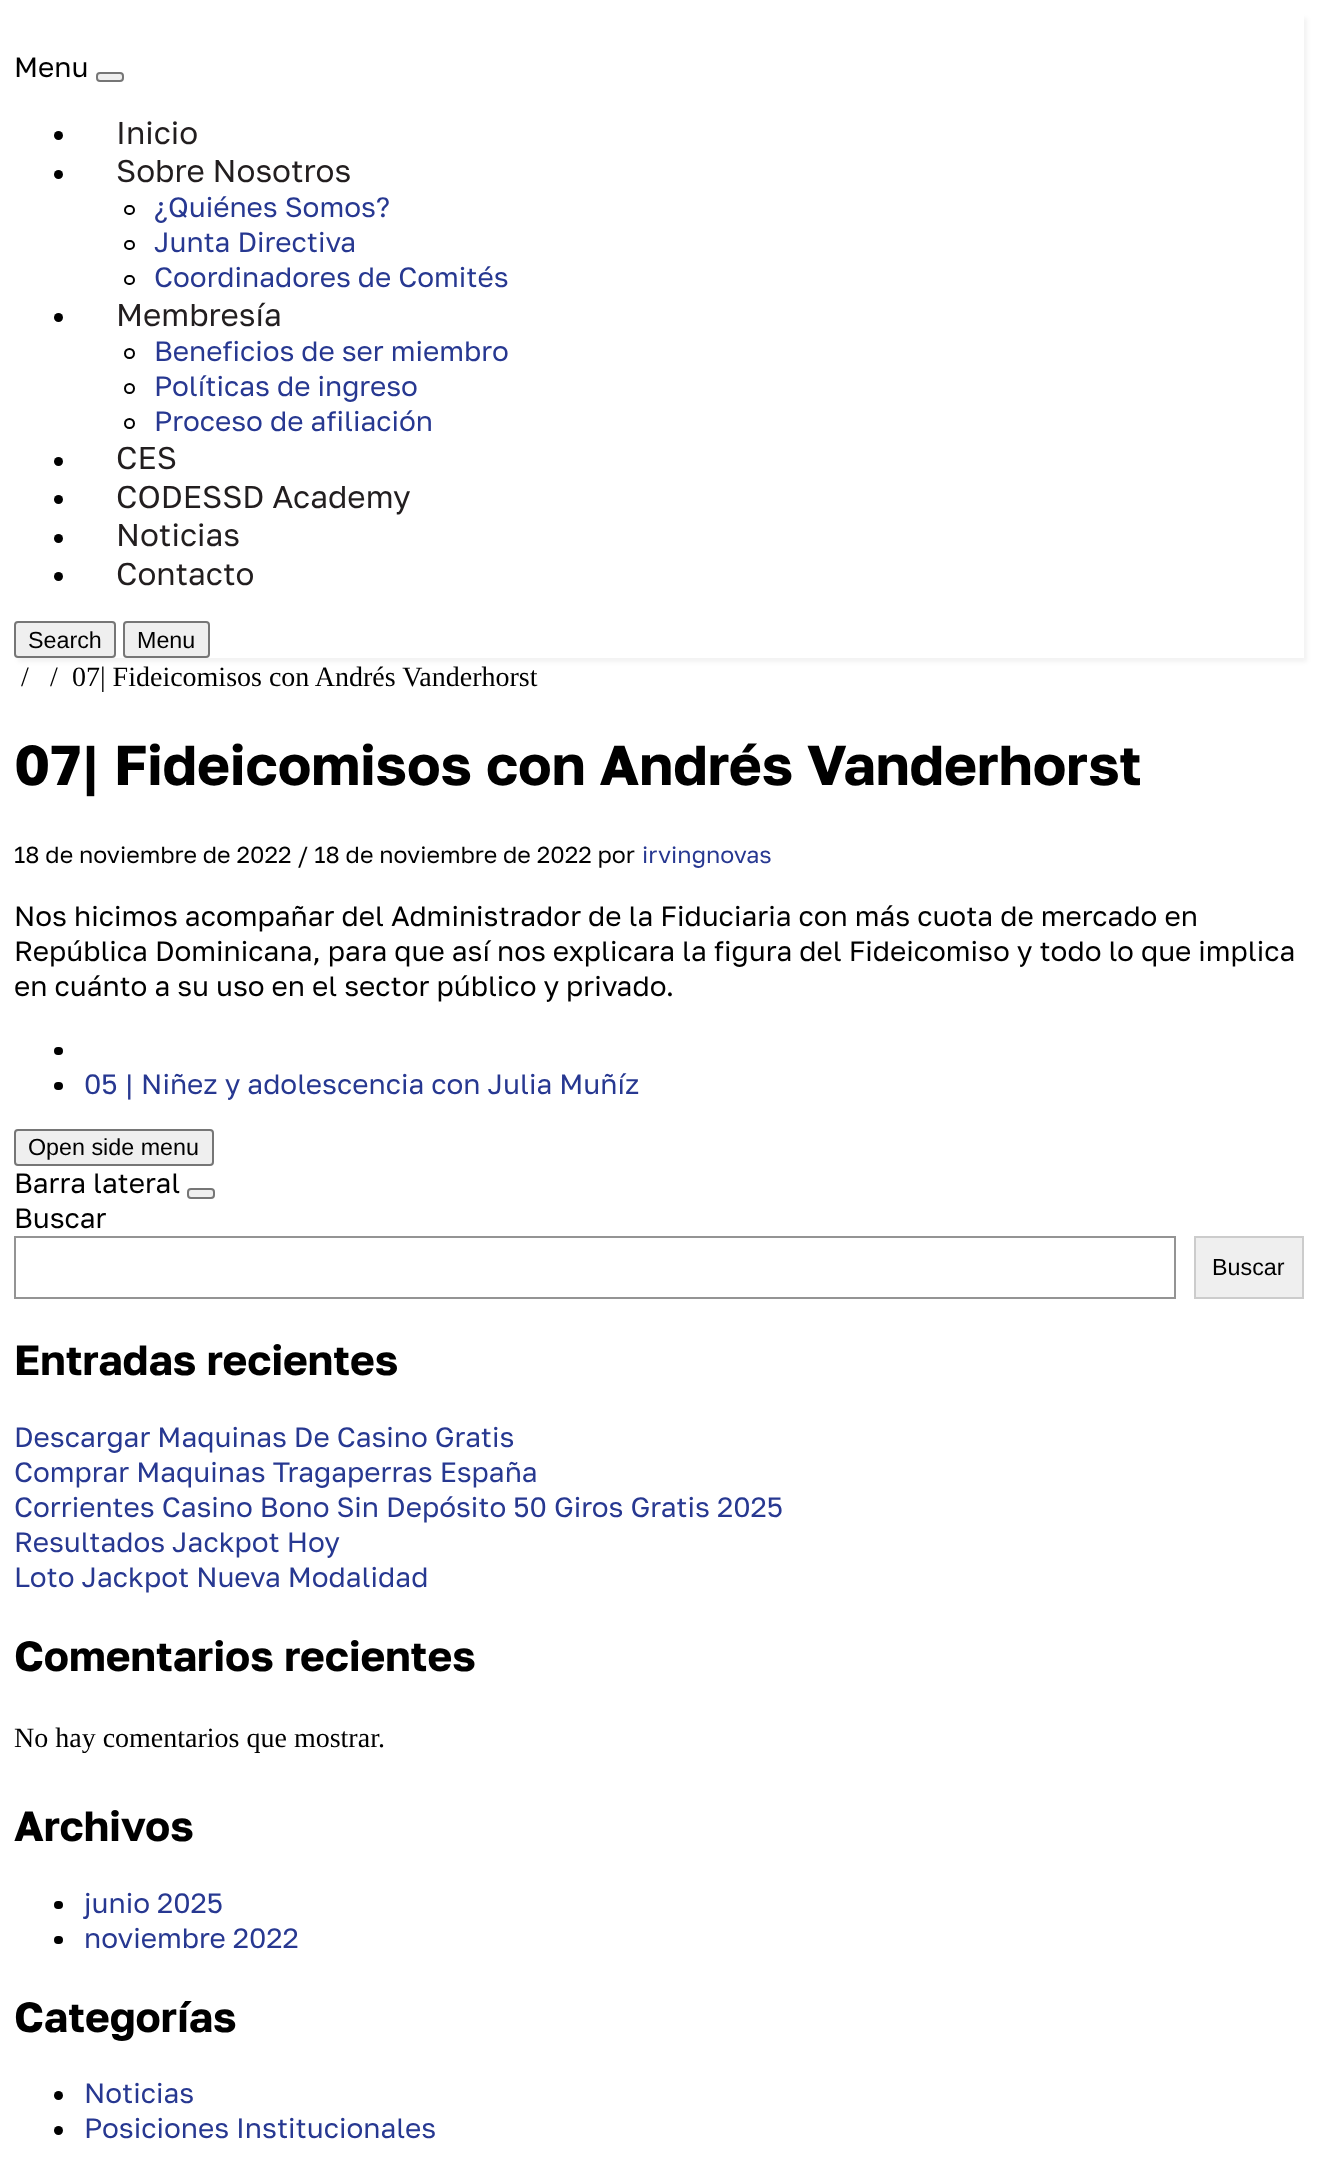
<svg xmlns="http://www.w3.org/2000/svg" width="1317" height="2174">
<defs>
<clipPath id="clip1"><path d="M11 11h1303v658h-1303zm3 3h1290v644h-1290z" clip-rule="evenodd"/></clipPath>
</defs>
<rect width="100%" height="100%" fill="#fff"/>
<g clip-path="url(#clip1)">
<rect x="18" y="18" width="1289" height="644" fill="#0000000d" filter="blur(2px)"/>
</g>
<text x="14" y="77" style="font-family:Golos Text;font-size:28px;fill:#000">Menu</text>
<rect x="97" y="73" width="26" height="8" rx="3" fill="#efefef" stroke="#767676" stroke-width="2"/>
<circle cx="58.5" cy="135.5" r="4.5" fill="#000"/>
<text x="116" y="144" style="font-family:Golos Text;font-size:31.5px;fill:#221e1f">Inicio</text>
<circle cx="58.5" cy="174.5" r="4.5" fill="#000"/>
<text x="116" y="182" style="font-family:Golos Text;font-size:31.5px;fill:#221e1f">Sobre Nosotros</text>
<rect x="125" y="206" width="9" height="8" rx="4" fill="none" stroke="#000" stroke-width="2"/>
<text x="154" y="217" style="font-family:Golos Text;font-size:28px;fill:#273891">¿Quiénes Somos?</text>
<rect x="125" y="241" width="9" height="8" rx="4" fill="none" stroke="#000" stroke-width="2"/>
<text x="154" y="252" style="font-family:Golos Text;font-size:28px;fill:#273891">Junta Directiva</text>
<rect x="125" y="276" width="9" height="8" rx="4" fill="none" stroke="#000" stroke-width="2"/>
<text x="154" y="287" style="font-family:Golos Text;font-size:28px;fill:#273891">Coordinadores de Comités</text>
<circle cx="58.5" cy="317.5" r="4.5" fill="#000"/>
<text x="116" y="326" style="font-family:Golos Text;font-size:31.5px;fill:#221e1f">Membresía</text>
<circle cx="129.5" cy="353.5" r="4.5" fill="none" stroke="#000" stroke-width="2"/>
<text x="154" y="361" style="font-family:Golos Text;font-size:28px;fill:#273891">Beneficios de ser miembro</text>
<circle cx="129.5" cy="388.5" r="4.5" fill="none" stroke="#000" stroke-width="2"/>
<text x="154" y="396" style="font-family:Golos Text;font-size:28px;fill:#273891">Políticas de ingreso</text>
<circle cx="129.5" cy="423.5" r="4.5" fill="none" stroke="#000" stroke-width="2"/>
<text x="154" y="431" style="font-family:Golos Text;font-size:28px;fill:#273891">Proceso de afiliación</text>
<circle cx="58.5" cy="461.5" r="4.5" fill="#000"/>
<text x="116" y="469" style="font-family:Golos Text;font-size:31.5px;fill:#221e1f">CES</text>
<circle cx="58.5" cy="499.5" r="4.5" fill="#000"/>
<text x="116" y="508" style="font-family:Golos Text;font-size:31.5px;fill:#221e1f">CODESSD Academy</text>
<circle cx="58.5" cy="538.5" r="4.5" fill="#000"/>
<text x="116" y="546" style="font-family:Golos Text;font-size:31.5px;fill:#221e1f">Noticias</text>
<circle cx="58.5" cy="576.5" r="4.5" fill="#000"/>
<text x="116" y="585" style="font-family:Golos Text;font-size:31.5px;fill:#221e1f">Contacto</text>
<rect x="15" y="622" width="100" height="35" rx="3" fill="#efefef" stroke="#767676" stroke-width="2"/>
<text x="28" y="648" style="font-family:Liberation Sans;font-size:23.3px;fill:#000">Search</text>
<rect x="124" y="622" width="85" height="35" rx="3" fill="#efefef" stroke="#767676" stroke-width="2"/>
<text x="137" y="648" style="font-family:Liberation Sans;font-size:23.3px;fill:#000">Menu</text>
<text x="21" y="686" style="font-family:Liberation Serif;font-size:28px;fill:#000">/</text>
<text x="50" y="686" style="font-family:Liberation Serif;font-size:28px;fill:#000">/</text>
<text x="72" y="686" style="font-family:Liberation Serif;font-size:28px;fill:#000">07| Fideicomisos con Andrés Vanderhorst</text>
<text x="14" y="785" style="font-family:Golos Text;font-size:56px;font-weight:bold;fill:#000">07| Fideicomisos con Andrés Vanderhorst</text>
<text x="14" y="863" style="font-family:Golos Text;font-size:23.3px;fill:#000">18 de noviembre de 2022 / 18 de noviembre de 2022 por</text>
<text x="642" y="863" style="font-family:Golos Text;font-size:23.3px;fill:#273891">irvingnovas</text>
<text x="14" y="926" style="font-family:Golos Text;font-size:28px;fill:#000">Nos hicimos acompañar del Administrador de la Fiduciaria con más cuota de mercado en</text>
<text x="14" y="961" style="font-family:Golos Text;font-size:28px;fill:#000">República Dominicana, para que así nos explicara la figura del Fideicomiso y todo lo que implica</text>
<text x="14" y="996" style="font-family:Golos Text;font-size:28px;fill:#000">en cuánto a su uso en el sector público y privado.</text>
<rect x="54" y="1047" width="9" height="8" rx="4" fill="#000"/>
<rect x="54" y="1082" width="9" height="8" rx="4" fill="#000"/>
<text x="84" y="1094" style="font-family:Golos Text;font-size:28px;fill:#273891">05 | Niñez y adolescencia con Julia Muñíz</text>
<rect x="15" y="1130" width="198" height="35" rx="3" fill="#efefef" stroke="#767676" stroke-width="2"/>
<text x="28" y="1155" style="font-family:Liberation Sans;font-size:23.3px;fill:#000">Open side menu</text>
<text x="14" y="1193" style="font-family:Golos Text;font-size:28px;fill:#000">Barra lateral</text>
<rect x="188" y="1189" width="26" height="9" rx="3" fill="#efefef" stroke="#767676" stroke-width="2"/>
<text x="14" y="1228" style="font-family:Golos Text;font-size:28px;fill:#000">Buscar</text>
<rect x="15" y="1237" width="1160" height="61" fill="none" stroke="#949494" stroke-width="2"/>
<rect x="1195" y="1237" width="108" height="61" fill="#efefef" stroke="#ccc" stroke-width="2"/>
<text x="1212" y="1275" style="font-family:Liberation Sans;font-size:23.3px;fill:#000">Buscar</text>
<text x="14" y="1375" style="font-family:Golos Text;font-size:42px;font-weight:bold;fill:#000">Entradas recientes</text>
<text x="14" y="1447" style="font-family:Golos Text;font-size:28px;fill:#273891">Descargar Maquinas De Casino Gratis</text>
<text x="14" y="1482" style="font-family:Golos Text;font-size:28px;fill:#273891">Comprar Maquinas Tragaperras España</text>
<text x="14" y="1517" style="font-family:Golos Text;font-size:28px;fill:#273891">Corrientes Casino Bono Sin Depósito 50 Giros Gratis 2025</text>
<text x="14" y="1552" style="font-family:Golos Text;font-size:28px;fill:#273891">Resultados Jackpot Hoy</text>
<text x="14" y="1587" style="font-family:Golos Text;font-size:28px;fill:#273891">Loto Jackpot Nueva Modalidad</text>
<text x="14" y="1671" style="font-family:Golos Text;font-size:42px;font-weight:bold;fill:#000">Comentarios recientes</text>
<text x="14" y="1747" style="font-family:Liberation Serif;font-size:28px;fill:#000">No hay comentarios que mostrar.</text>
<text x="14" y="1841" style="font-family:Golos Text;font-size:42px;font-weight:bold;fill:#000">Archivos</text>
<rect x="54" y="1901" width="9" height="8" rx="4" fill="#000"/>
<text x="84" y="1913" style="font-family:Golos Text;font-size:28px;fill:#273891">junio 2025</text>
<rect x="54" y="1936" width="9" height="8" rx="4" fill="#000"/>
<text x="84" y="1948" style="font-family:Golos Text;font-size:28px;fill:#273891">noviembre 2022</text>
<text x="14" y="2032" style="font-family:Golos Text;font-size:42px;font-weight:bold;fill:#000">Categorías</text>
<circle cx="58.5" cy="2095.5" r="4.5" fill="#000"/>
<text x="84" y="2103" style="font-family:Golos Text;font-size:28px;fill:#273891">Noticias</text>
<circle cx="58.5" cy="2130.5" r="4.5" fill="#000"/>
<text x="84" y="2138" style="font-family:Golos Text;font-size:28px;fill:#273891">Posiciones Institucionales</text>
</svg>
